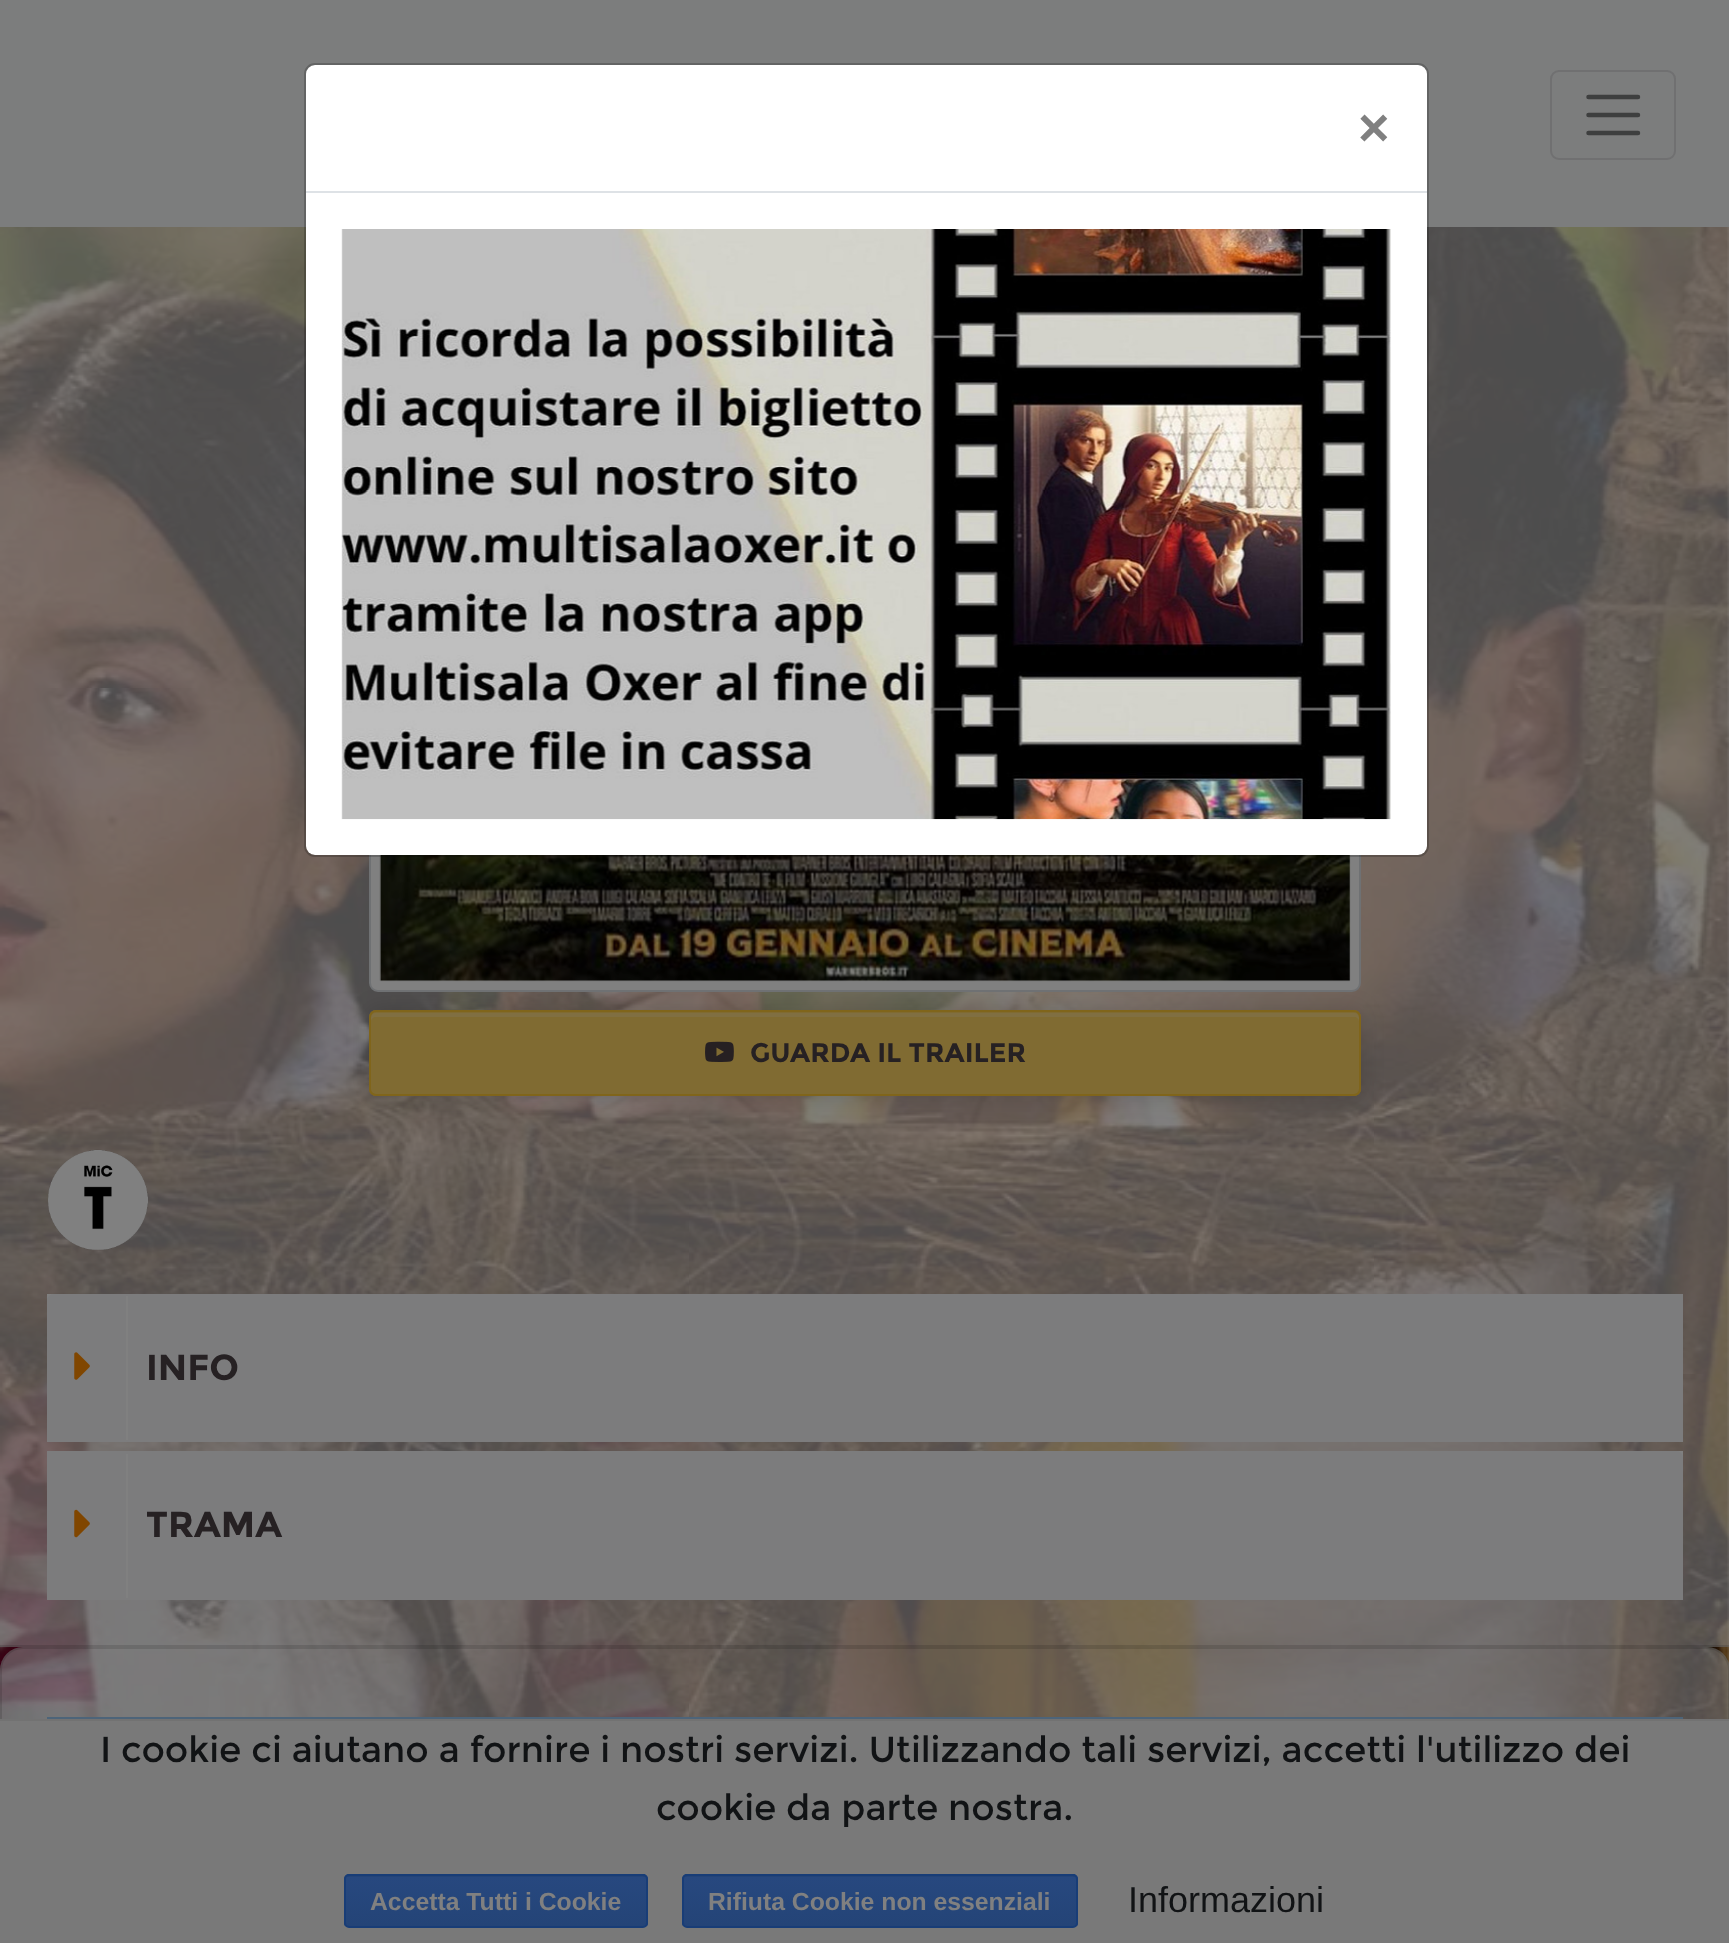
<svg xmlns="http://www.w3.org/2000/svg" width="1729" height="1943">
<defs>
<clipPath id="clip1"><rect x="344" y="1874" width="304" height="54" rx="5"/></clipPath>
<linearGradient id="g1" gradientUnits="userSpaceOnUse" x1="496" y1="1827" x2="496" y2="1877"><stop offset="0" stop-color="#27487f"/><stop offset="1" stop-color="#244477"/></linearGradient>
<linearGradient id="g2" gradientUnits="userSpaceOnUse" x1="496" y1="1877" x2="496" y2="1926"><stop offset="0" stop-color="#27487f"/><stop offset="1" stop-color="#244477"/></linearGradient>
<clipPath id="clip2"><rect x="682" y="1874" width="396" height="54" rx="5"/></clipPath>
<linearGradient id="g3" gradientUnits="userSpaceOnUse" x1="880" y1="1827" x2="880" y2="1877"><stop offset="0" stop-color="#27487f"/><stop offset="1" stop-color="#244477"/></linearGradient>
<linearGradient id="g4" gradientUnits="userSpaceOnUse" x1="880" y1="1877" x2="880" y2="1926"><stop offset="0" stop-color="#27487f"/><stop offset="1" stop-color="#244477"/></linearGradient>
</defs>
<rect width="100%" height="100%" fill="#fff"/>
<image x="0" y="227" width="1729" height="1492" href="media/2.png"/>
<rect y="227" width="1729" height="1420" fill="#80808099"/>
<rect x="-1" y="-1" width="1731" height="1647" fill="none" stroke="#0000001f" stroke-width="2"/>
<rect x="369" y="1010" width="992" height="86" rx="7" fill="#00000029" filter="blur(11px)"/>
<rect x="370" y="-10" width="990" height="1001" rx="8" fill="#808080" stroke="#6f7173" stroke-width="2"/>
<rect width="1729" height="227" fill="#7c7d7d"/>
<rect x="1551" y="71" width="124" height="88" rx="8" fill="none" stroke="#707071" stroke-width="2"/>
<path d="M1588.5 97h49.5m-49.5 18h49.5m-49.5 18h49.5" fill="none" stroke="#3e3f3f" stroke-width="4.5" stroke-linecap="round"/>
<rect x="306" y="65" width="1121" height="790" rx="9" fill="#fff"/>
<image x="379" y="855" width="972" height="127" href="media/3.png"/>
<rect x="305" y="64" width="1123" height="792" rx="10" fill="none" stroke="#00000033" stroke-width="2"/>
<rect x="306" y="191" width="1121" height="2" fill="#dee2e6"/>
<text x="1358" y="146" style="font-family:Liberation Sans;font-size:54px;font-weight:bold;fill:#808080">×</text>
<image x="341" y="229" width="1050" height="591" href="media/1.png"/>
<rect x="369" y="1010" width="992" height="86" rx="7" fill="#806b32"/>
<path d="M376 1017h978c3 0 5 2 5 5v-4c0-3-2-5-5-5h-978c-3 0-5 2-5 5v4c0-3 2-5 5-5z" fill="#806f42"/>
<rect x="370" y="1011" width="990" height="84" rx="6" fill="none" stroke="#80651b" stroke-width="2"/>
<image x="705" y="1041" width="29" height="21" href="media/4.png"/>
<text x="750" y="1062" style="font-family:Montserrat;font-size:27px;font-weight:bold;fill:#262123">GUARDA IL TRAILER</text>
<image x="48" y="1149" width="100" height="101" href="media/5.png"/>
<rect x="47" y="1294" width="7" height="7" fill="#808080"/>
<path d="M54 1294h1629v148h-1636v-141c0-4 3-7 7-7z" fill="#7c7c7d"/>
<rect x="126" y="1296" width="2" height="144" fill="#808080"/>
<image x="74" y="1352" width="16" height="28" href="media/6.png"/>
<text x="146" y="1380" style="font-family:Montserrat;font-size:36px;font-weight:bold;fill:#262123">INFO</text>
<rect x="1676" y="1451" width="7" height="7" fill="#808080"/>
<path d="M47 1451h1629c4 0 7 3 7 7v142h-1636z" fill="#7c7c7d"/>
<rect x="126" y="1454" width="2" height="144" fill="#808080"/>
<image x="74" y="1509" width="16" height="29" href="media/7.png"/>
<text x="146" y="1537" style="font-family:Montserrat;font-size:36px;font-weight:bold;fill:#262123">TRAMA</text>
<rect y="1647" width="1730" height="221" rx="23" fill="#80808099"/>
<rect x="1" y="1648" width="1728" height="219" rx="22" fill="none" stroke="#0000001f" stroke-width="2"/>
<rect x="48" y="1718" width="1634" height="101" fill="none" stroke="#4d6479" stroke-width="2"/>
<rect y="1721" width="1729" height="222" fill="#797979"/>
<rect y="1719" width="1729" height="2" fill="#727272"/>
<text x="100" y="1762" style="font-family:Montserrat;font-size:36px;fill:#111315">I cookie ci aiutano a fornire i nostri servizi. Utilizzando tali servizi, accetti l'utilizzo dei</text>
<text x="656" y="1820" style="font-family:Montserrat;font-size:36px;fill:#111315">cookie da parte nostra.</text>
<g clip-path="url(#clip1)">
<rect x="344" y="1874" width="304" height="3" fill="url(#g1)"/>
<rect x="344" y="1877" width="304" height="49" fill="url(#g2)"/>
</g>
<rect x="345" y="1875" width="302" height="52" rx="4" fill="none" stroke="#183d77" stroke-width="2"/>
<text x="370" y="1910" style="font-family:Liberation Sans;font-size:24.75px;font-weight:bold;fill:#808080">Accetta Tutti i Cookie</text>
<g clip-path="url(#clip2)">
<rect x="682" y="1874" width="396" height="3" fill="url(#g3)"/>
<rect x="682" y="1877" width="396" height="49" fill="url(#g4)"/>
</g>
<rect x="683" y="1875" width="394" height="52" rx="4" fill="none" stroke="#183d77" stroke-width="2"/>
<text x="708" y="1910" style="font-family:Liberation Sans;font-size:24.75px;font-weight:bold;fill:#808080">Rifiuta Cookie non essenziali</text>
<text x="1128" y="1912" style="font-family:Liberation Sans;font-size:36px;fill:#111315">Informazioni</text>
</svg>
